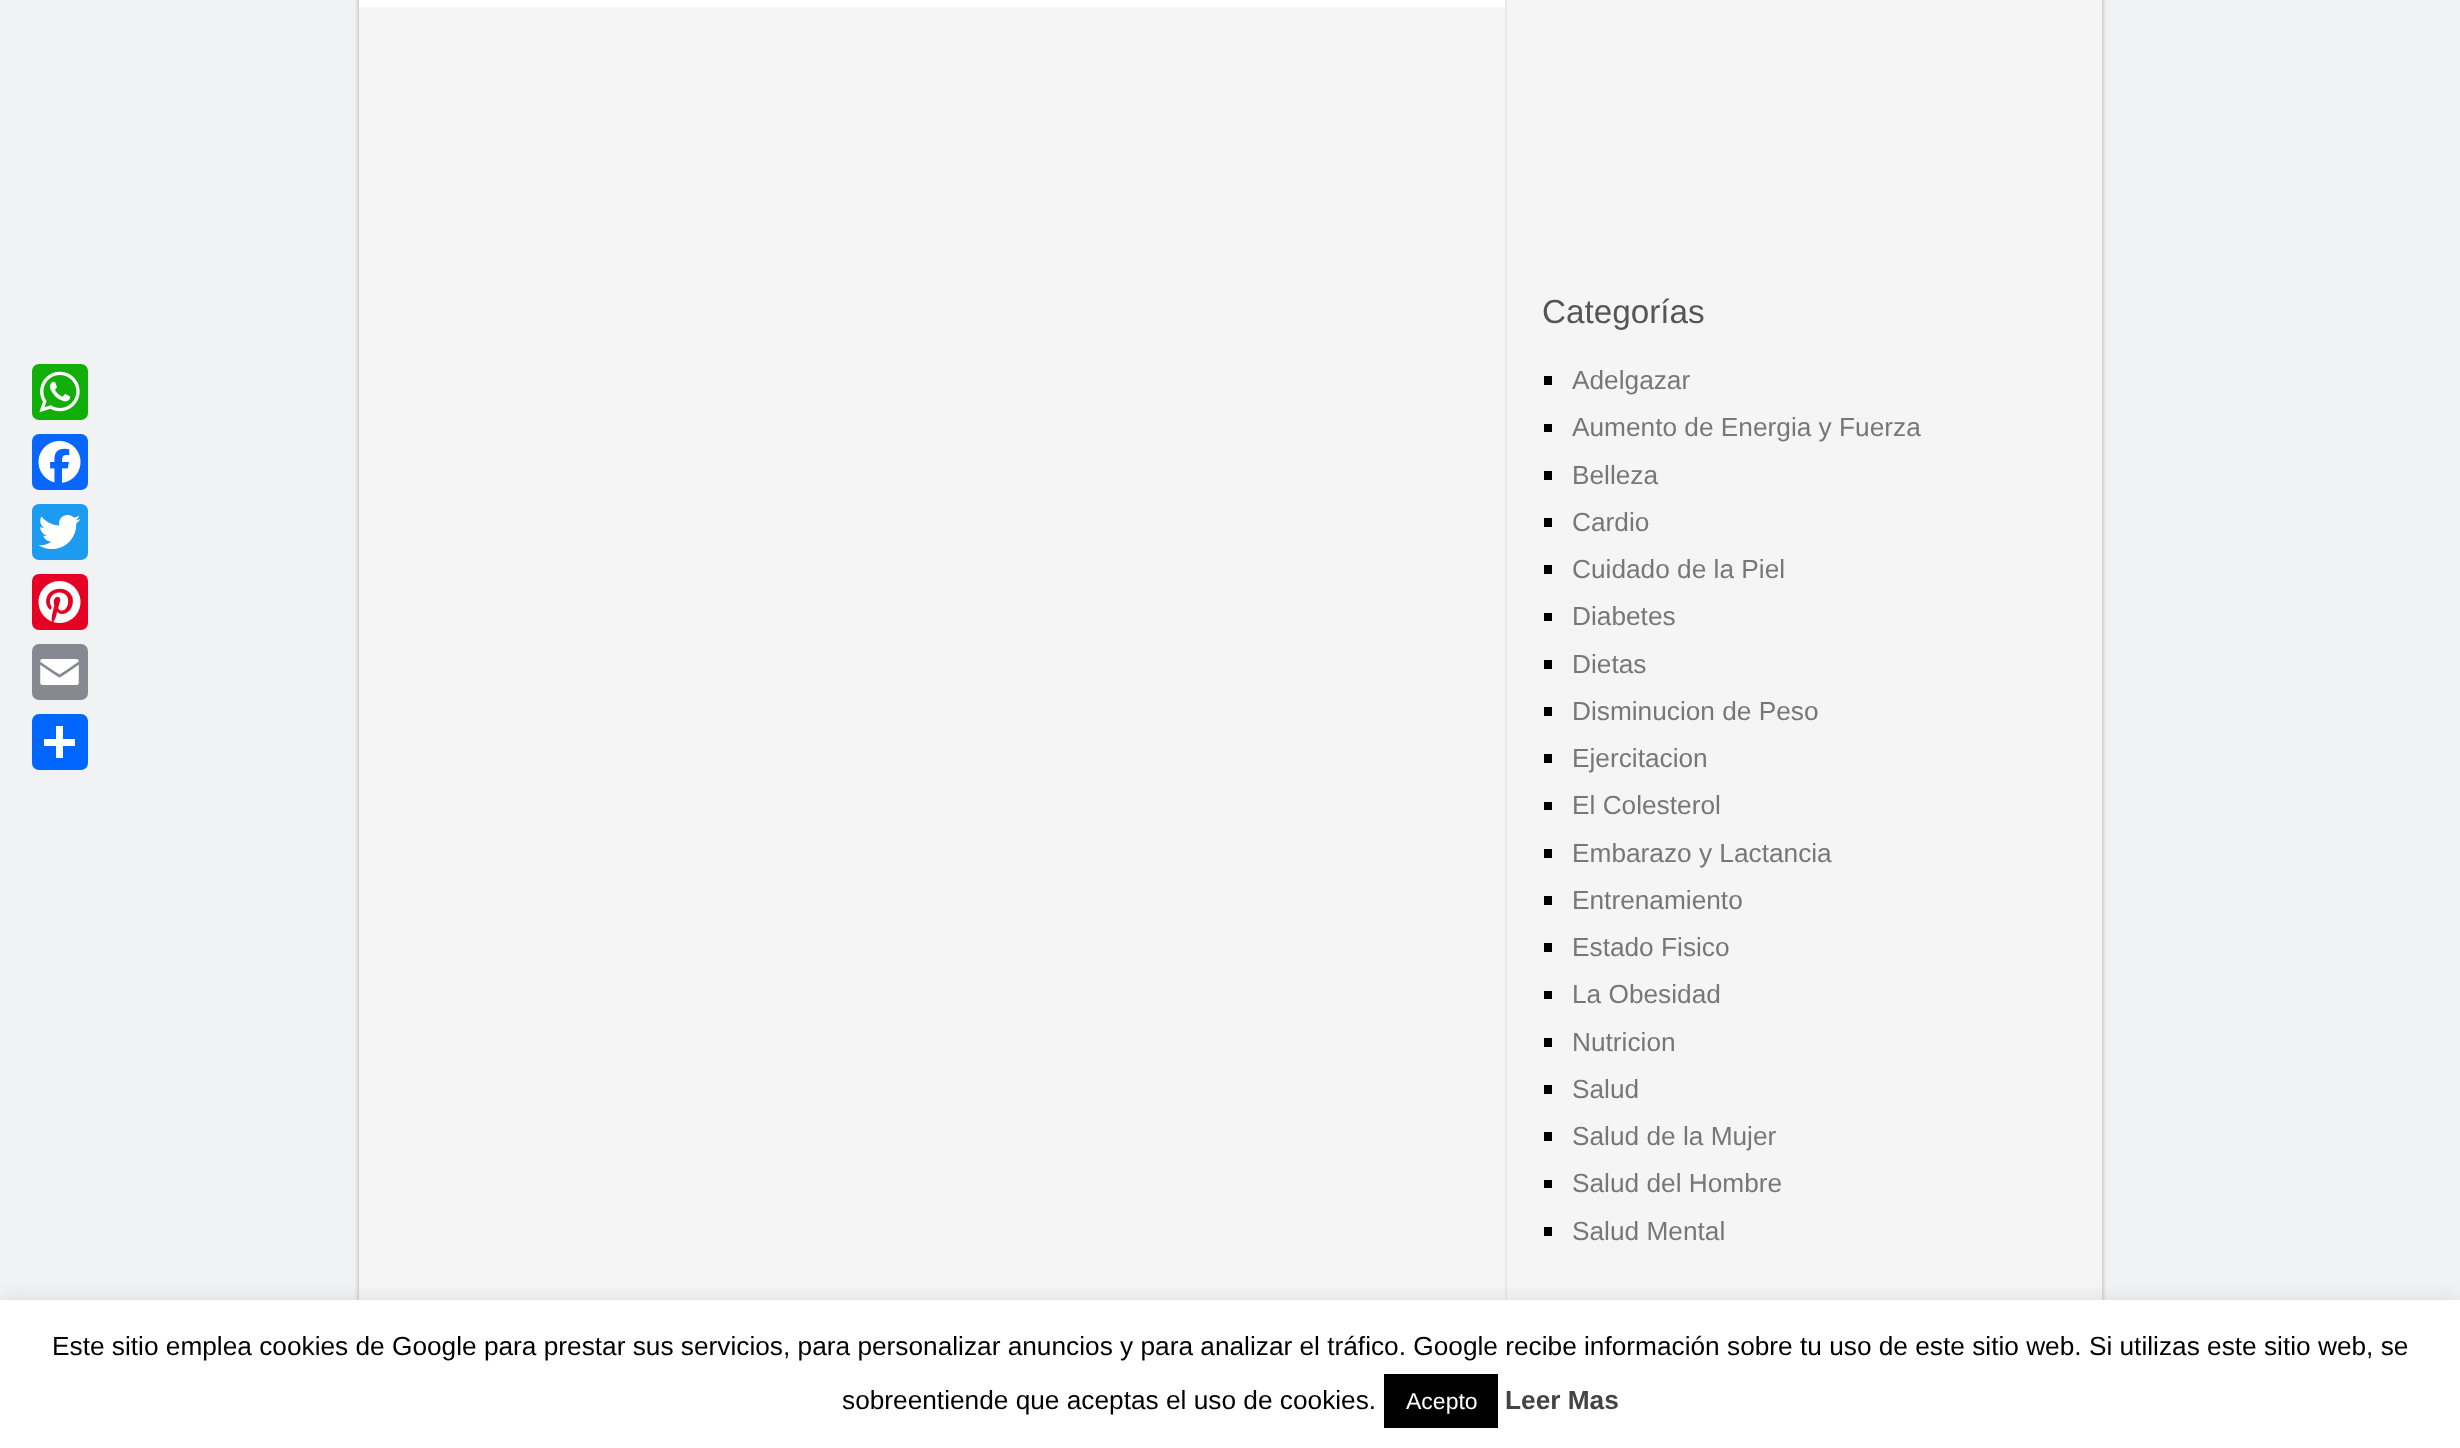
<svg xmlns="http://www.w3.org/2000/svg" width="2460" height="1448">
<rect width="100%" height="100%" fill="#f0f2f3"/>
<rect x="32" y="364" width="56" height="56" rx="7" fill="#12af0a"/>
<image x="39" y="371" width="41" height="42" href="media/1.png"/>
<rect x="32" y="434" width="56" height="56" rx="7" fill="#0866ff"/>
<image x="38" y="441" width="43" height="42" href="media/2.png"/>
<rect x="32" y="504" width="56" height="56" rx="7" fill="#1d9bf0"/>
<image x="38" y="514" width="43" height="36" href="media/3.png"/>
<rect x="32" y="574" width="56" height="56" rx="7" fill="#e60023"/>
<image x="38" y="581" width="43" height="42" href="media/4.png"/>
<rect x="32" y="644" width="56" height="56" rx="7" fill="#888990"/>
<image x="40" y="659" width="39" height="26" href="media/5.png"/>
<rect x="32" y="714" width="56" height="56" rx="7" fill="#0166ff"/>
<rect x="56" y="726" width="7" height="32" fill="#fff"/>
<rect x="44" y="739" width="31" height="7" fill="#fff"/>
<rect x="359" y="-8" width="1743" height="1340" fill="#0000004d" filter="blur(2.5px)"/>
<rect x="359" width="1743" height="1300" fill="#f5f5f5"/>
<rect x="359" width="1146" height="7" fill="#fff"/>
<rect x="1505" width="2" height="1300" fill="#e8e8e8"/>
<text x="1542" y="323" style="font-family:Liberation Sans;font-size:33.25px;fill:#555">Categorías</text>
<rect x="1544" y="376" width="8" height="9" fill="#000"/>
<text x="1572" y="389" style="font-family:Liberation Sans;font-size:26.25px;fill:#777">Adelgazar</text>
<rect x="1544" y="424" width="8" height="8" fill="#000"/>
<text x="1572" y="436" style="font-family:Liberation Sans;font-size:26.25px;fill:#777">Aumento de Energia y Fuerza</text>
<rect x="1544" y="471" width="8" height="9" fill="#000"/>
<text x="1572" y="484" style="font-family:Liberation Sans;font-size:26.25px;fill:#777">Belleza</text>
<rect x="1544" y="518" width="8" height="9" fill="#000"/>
<text x="1572" y="531" style="font-family:Liberation Sans;font-size:26.25px;fill:#777">Cardio</text>
<rect x="1544" y="565" width="8" height="9" fill="#000"/>
<text x="1572" y="578" style="font-family:Liberation Sans;font-size:26.25px;fill:#777">Cuidado de la Piel</text>
<rect x="1544" y="613" width="8" height="8" fill="#000"/>
<text x="1572" y="625" style="font-family:Liberation Sans;font-size:26.25px;fill:#777">Diabetes</text>
<rect x="1544" y="660" width="8" height="9" fill="#000"/>
<text x="1572" y="673" style="font-family:Liberation Sans;font-size:26.25px;fill:#777">Dietas</text>
<rect x="1544" y="707" width="8" height="9" fill="#000"/>
<text x="1572" y="720" style="font-family:Liberation Sans;font-size:26.25px;fill:#777">Disminucion de Peso</text>
<rect x="1544" y="754" width="8" height="9" fill="#000"/>
<text x="1572" y="767" style="font-family:Liberation Sans;font-size:26.25px;fill:#777">Ejercitacion</text>
<rect x="1544" y="802" width="8" height="8" fill="#000"/>
<text x="1572" y="814" style="font-family:Liberation Sans;font-size:26.25px;fill:#777">El Colesterol</text>
<rect x="1544" y="849" width="8" height="9" fill="#000"/>
<text x="1572" y="862" style="font-family:Liberation Sans;font-size:26.25px;fill:#777">Embarazo y Lactancia</text>
<rect x="1544" y="896" width="8" height="9" fill="#000"/>
<text x="1572" y="909" style="font-family:Liberation Sans;font-size:26.25px;fill:#777">Entrenamiento</text>
<rect x="1544" y="943" width="8" height="9" fill="#000"/>
<text x="1572" y="956" style="font-family:Liberation Sans;font-size:26.25px;fill:#777">Estado Fisico</text>
<rect x="1544" y="991" width="8" height="8" fill="#000"/>
<text x="1572" y="1003" style="font-family:Liberation Sans;font-size:26.25px;fill:#777">La Obesidad</text>
<rect x="1544" y="1038" width="8" height="9" fill="#000"/>
<text x="1572" y="1051" style="font-family:Liberation Sans;font-size:26.25px;fill:#777">Nutricion</text>
<rect x="1544" y="1085" width="8" height="9" fill="#000"/>
<text x="1572" y="1098" style="font-family:Liberation Sans;font-size:26.25px;fill:#777">Salud</text>
<rect x="1544" y="1132" width="8" height="9" fill="#000"/>
<text x="1572" y="1145" style="font-family:Liberation Sans;font-size:26.25px;fill:#777">Salud de la Mujer</text>
<rect x="1544" y="1180" width="8" height="8" fill="#000"/>
<text x="1572" y="1192" style="font-family:Liberation Sans;font-size:26.25px;fill:#777">Salud del Hombre</text>
<rect x="1544" y="1227" width="8" height="9" fill="#000"/>
<text x="1572" y="1240" style="font-family:Liberation Sans;font-size:26.25px;fill:#777">Salud Mental</text>
<rect y="1299" width="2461" height="148" fill="#acabab4d" filter="blur(9px)"/>
<rect y="1300" width="2460" height="148" fill="#fff"/>
<text x="52" y="1355" style="font-family:Liberation Sans;font-size:26.25px;fill:#000">Este sitio emplea cookies de Google para prestar sus servicios, para personalizar anuncios y para analizar el tráfico. Google recibe información sobre tu uso de este sitio web. Si utilizas este sitio web, se</text>
<text x="842" y="1409" style="font-family:Liberation Sans;font-size:26.25px;fill:#000">sobreentiende que aceptas el uso de cookies.</text>
<rect x="1384" y="1374" width="114" height="54" fill="#000"/>
<text x="1406" y="1409" style="font-family:Liberation Sans;font-size:23px;fill:#fff">Acepto</text>
<text x="1505" y="1409" style="font-family:Liberation Sans;font-size:26.25px;font-weight:bold;fill:#444">Leer Mas</text>
</svg>
